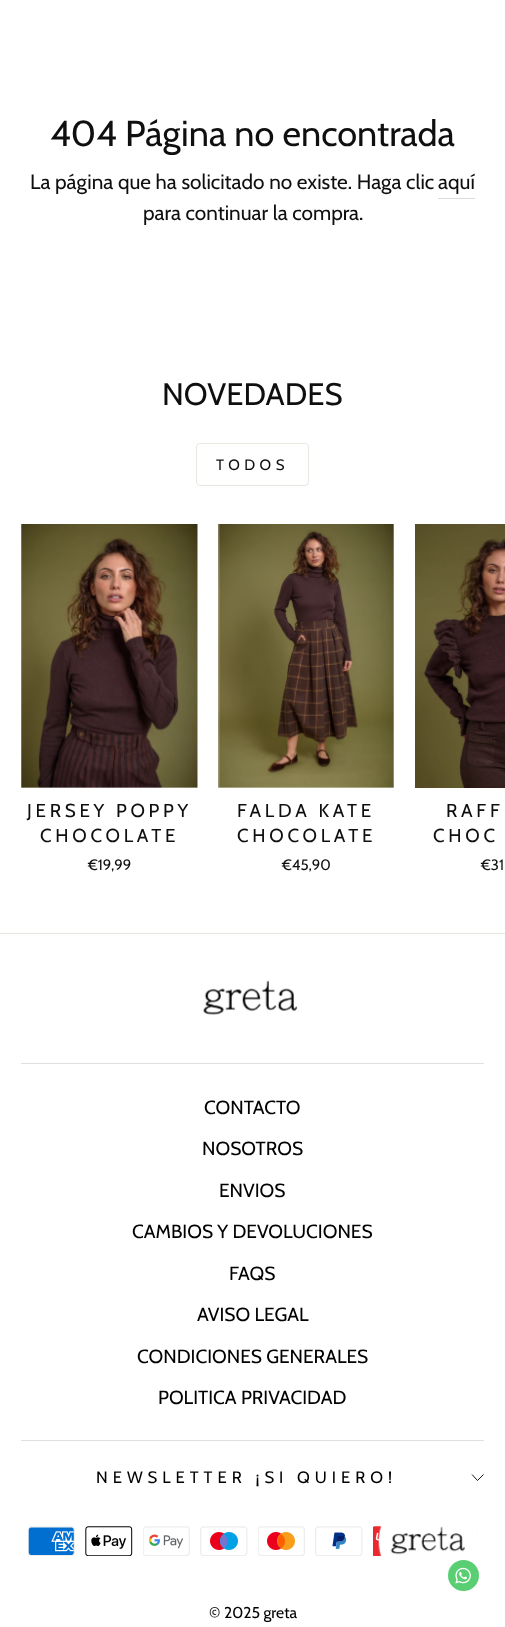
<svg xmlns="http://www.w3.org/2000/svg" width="505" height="1627">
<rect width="100%" height="100%" fill="#fff"/>
<text x="50" y="146" style="font-family:Cabin;font-size:36.1px;fill:#0f0f0f">404 Página no encontrada</text>
<text x="30" y="189" style="font-family:Cabin;font-size:20.75px;fill:#0f0f0f">La página que ha solicitado no existe. Haga clic</text>
<rect x="438" y="198" width="37" height="1" fill="#dbdbdb"/>
<text x="438" y="189" style="font-family:Cabin;font-size:20.75px;fill:#0f0f0f">aquí</text>
<text x="143" y="220" style="font-family:Cabin;font-size:20.75px;fill:#0f0f0f">para continuar la compra.</text>
<text x="162" y="405" style="font-family:Cabin;font-size:31px;fill:#0f0f0f">NOVEDADES</text>
<rect x="196.5" y="443.5" width="112" height="42" rx="3.5" fill="none" stroke="#e8e8e1"/>
<text x="216" y="470" style="font-family:Cabin;font-size:15px;letter-spacing:4.5px;fill:#0f0f0f">TODOS</text>
<image x="21" y="524" width="177" height="264" href="media/1.png"/>
<text x="27" y="817" style="font-family:Cabin;font-size:18.75px;letter-spacing:3.75px;fill:#0f0f0f">JERSEY POPPY</text>
<text x="40" y="842" style="font-family:Cabin;font-size:18.75px;letter-spacing:3.75px;fill:#0f0f0f">CHOCOLATE</text>
<text x="88" y="870" style="font-family:Cabin;font-size:15px;fill:#0f0f0f">€19,99</text>
<image x="218" y="524" width="176" height="264" href="media/2.png"/>
<text x="237" y="817" style="font-family:Cabin;font-size:18.75px;letter-spacing:3.75px;fill:#0f0f0f">FALDA KATE</text>
<text x="237" y="842" style="font-family:Cabin;font-size:18.75px;letter-spacing:3.75px;fill:#0f0f0f">CHOCOLATE</text>
<text x="282" y="870" style="font-family:Cabin;font-size:15px;fill:#0f0f0f">€45,90</text>
<image x="415" y="524" width="90" height="264" href="media/3.png"/>
<text x="446" y="817" style="font-family:Cabin;font-size:18.75px;letter-spacing:3.75px;fill:#0f0f0f">RAFF</text>
<text x="433" y="842" style="font-family:Cabin;font-size:18.75px;letter-spacing:3.75px;fill:#0f0f0f">CHOC</text>
<text x="481" y="870" style="font-family:Cabin;font-size:15px;fill:#0f0f0f">€31</text>
<rect y="933" width="505" height="1" fill="#e8e8e1"/>
<image x="203" y="980" width="95" height="35" href="media/4.png"/>
<rect x="21" y="1063" width="463" height="1" fill="#e0e0e0"/>
<text x="204" y="1114" style="font-family:Cabin;font-size:19.1px;fill:#000">CONTACTO</text>
<text x="202" y="1155" style="font-family:Cabin;font-size:19.1px;fill:#000">NOSOTROS</text>
<text x="219" y="1197" style="font-family:Cabin;font-size:19.1px;fill:#000">ENVIOS</text>
<text x="132" y="1238" style="font-family:Cabin;font-size:19.1px;fill:#000">CAMBIOS Y DEVOLUCIONES</text>
<text x="229" y="1280" style="font-family:Cabin;font-size:19.1px;fill:#000">FAQS</text>
<text x="197" y="1321" style="font-family:Cabin;font-size:19.1px;fill:#000">AVISO LEGAL</text>
<text x="137" y="1363" style="font-family:Cabin;font-size:19.1px;fill:#000">CONDICIONES GENERALES</text>
<text x="158" y="1404" style="font-family:Cabin;font-size:19.1px;fill:#000">POLITICA PRIVACIDAD</text>
<rect x="21" y="1440" width="463" height="1" fill="#e0e0e0"/>
<text x="96" y="1483" style="font-family:Cabin;font-size:16.6px;letter-spacing:5px;fill:#000">NEWSLETTER ¡SI QUIERO!</text>
<path d="M472 1474.5l5.5 6l6-6" fill="none" stroke="#000" stroke-width="0.9"/>
<image x="28" y="1526" width="47" height="30" href="media/5.png"/>
<image x="85" y="1526" width="48" height="30" href="media/6.png"/>
<image x="143" y="1526" width="47" height="30" href="media/7.png"/>
<image x="200" y="1526" width="48" height="30" href="media/8.png"/>
<image x="258" y="1526" width="47" height="30" href="media/9.png"/>
<image x="315" y="1526" width="48" height="30" href="media/10.png"/>
<image x="373" y="1526" width="9" height="30" href="media/11.png"/>
<image x="475" y="1527" width="3" height="29" href="media/12.png"/>
<text x="209" y="1618" style="font-family:Cabin;font-size:15.75px;fill:#000">© 2025 greta</text>
<image x="378" y="1526" width="100" height="30" href="media/13.png"/>
<circle cx="463.5" cy="1575.5" r="15.5" fill="#59ce72"/>
<image x="455" y="1567" width="16" height="17" href="media/14.png"/>
</svg>
